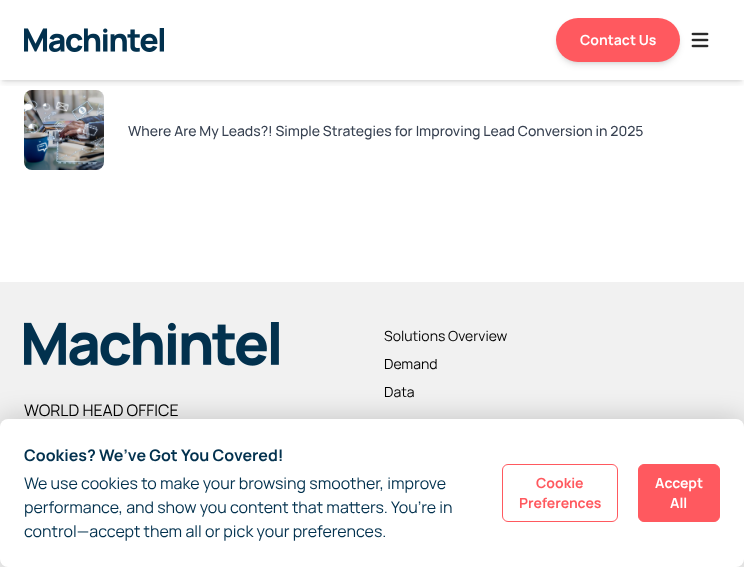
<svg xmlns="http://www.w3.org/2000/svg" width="744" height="567">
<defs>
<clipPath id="clip1"><rect x="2" y="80" width="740" height="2"/></clipPath>
<clipPath id="clip2"><rect x="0" y="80" width="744" height="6"/></clipPath>
</defs>
<rect width="100%" height="100%" fill="#fff"/>
<g clip-path="url(#clip1)">
<rect x="2" y="4" width="740" height="76" fill="#0000001a" filter="blur(2px)"/>
</g>
<image x="24" y="90" width="80" height="80" href="media/3.png"/>
<g clip-path="url(#clip2)">
<rect x="1" y="5" width="742" height="78" fill="#0000001a" filter="blur(3px)"/>
</g>
<image x="24" y="28" width="140" height="24" href="media/1.png"/>
<rect x="558" y="22" width="120" height="40" rx="20" fill="#0000001a" filter="blur(2px)"/>
<rect x="557" y="23" width="122" height="42" rx="21" fill="#0000001a" filter="blur(3px)"/>
<rect x="556" y="18" width="124" height="44" rx="22" fill="#ff595f"/>
<text x="580" y="45" style="font-family:Manrope;font-size:14px;font-weight:bold;fill:#fff">Contact Us</text>
<image x="691" y="32" width="18" height="16" href="media/2.png"/>
<text x="128" y="136" style="font-family:Manrope;font-size:14px;font-weight:500;fill:#374151">Where Are My Leads?! Simple Strategies for Improving Lead Conversion in 2025</text>
<rect y="282" width="744" height="285" fill="#f1f1f1"/>
<text x="384" y="341" style="font-family:Manrope;font-size:14px;fill:#000">Solutions Overview</text>
<text x="384" y="369" style="font-family:Manrope;font-size:14px;fill:#000">Demand</text>
<text x="384" y="397" style="font-family:Manrope;font-size:14px;fill:#000">Data</text>
<image x="24" y="322" width="255" height="44" href="media/4.png"/>
<text x="24" y="416" style="font-family:Manrope;font-size:16px;fill:#000">WORLD HEAD OFFICE</text>
<rect y="419" width="744" height="148" rx="8" fill="#00000033" filter="blur(14px)"/>
<rect y="419" width="744" height="148" rx="8" fill="#fff"/>
<text x="24" y="461" style="font-family:Manrope;font-size:16px;font-weight:bold;fill:#02314e">Cookies? We’ve Got You Covered!</text>
<text x="24" y="489" style="font-family:Manrope;font-size:16px;fill:#02314e">We use cookies to make your browsing smoother, improve</text>
<text x="24" y="513" style="font-family:Manrope;font-size:16px;fill:#02314e">performance, and show you content that matters. You’re in</text>
<text x="24" y="537" style="font-family:Manrope;font-size:16px;fill:#02314e">control—accept them all or pick your preferences.</text>
<rect x="502.5" y="464.5" width="115" height="57" rx="5.5" fill="none" stroke="#ff595f"/>
<text x="536" y="488" style="font-family:Manrope;font-size:14px;font-weight:bold;fill:#ff595f">Cookie</text>
<text x="519" y="508" style="font-family:Manrope;font-size:14px;font-weight:bold;fill:#ff595f">Preferences</text>
<rect x="638.5" y="464.5" width="81" height="57" rx="5.5" fill="#ff595f" stroke="#ff595f"/>
<text x="655" y="488" style="font-family:Manrope;font-size:14px;font-weight:bold;fill:#fff">Accept</text>
<text x="670" y="508" style="font-family:Manrope;font-size:14px;font-weight:bold;fill:#fff">All</text>
</svg>
